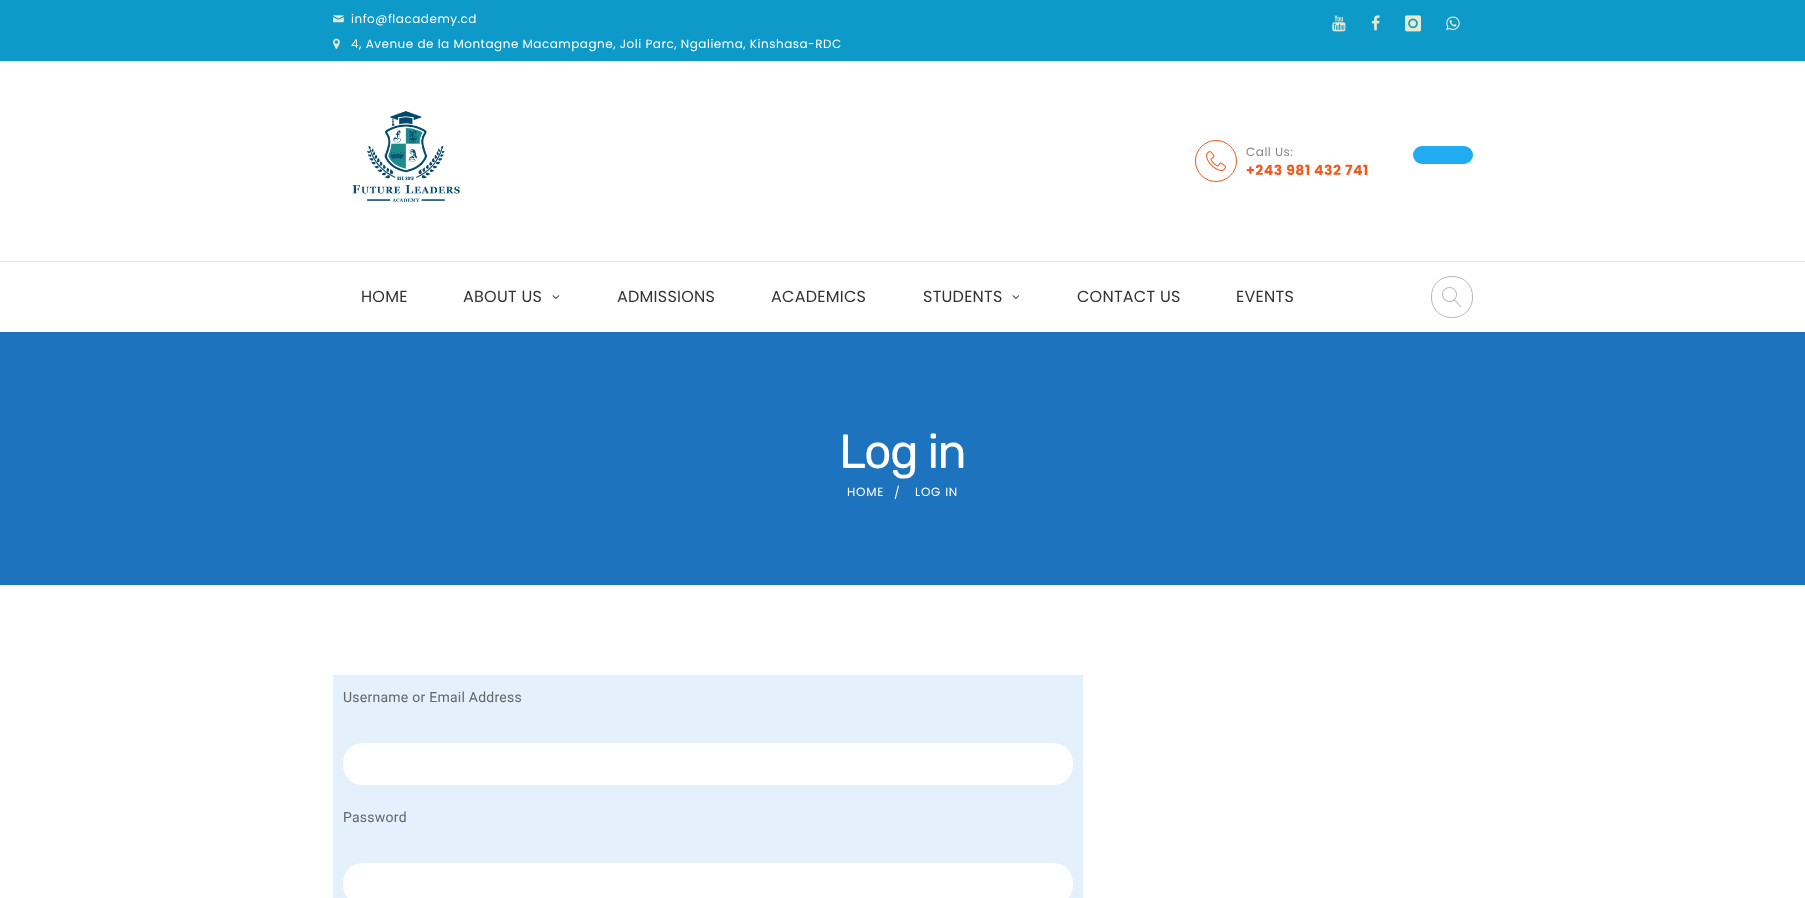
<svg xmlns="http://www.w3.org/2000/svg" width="1805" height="898">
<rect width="100%" height="100%" fill="#fff"/>
<rect width="1805" height="61" fill="#0e9ac9"/>
<image x="333" y="15" width="11" height="8" href="media/1.png"/>
<text x="351" y="23" style="font-family:Poppins;font-size:12px;letter-spacing:0.5px;fill:#fff">info@flacademy.cd</text>
<image x="333" y="38" width="7" height="11" href="media/2.png"/>
<text x="351" y="48" style="font-family:Poppins;font-size:12px;letter-spacing:0.5px;fill:#fff">4, Avenue de la Montagne Macampagne, Joli Parc, Ngaliema, Kinshasa-RDC</text>
<image x="1332" y="15" width="14" height="17" href="media/3.png"/>
<image x="1371" y="15" width="9" height="16" href="media/4.png"/>
<image x="1405" y="15" width="16" height="17" href="media/5.png"/>
<image x="1446" y="16" width="14" height="15" href="media/6.png"/>
<image x="352" y="111" width="108" height="91" href="media/7.png"/>
<circle cx="1216" cy="161" r="20.5" fill="none" stroke="#f05a21"/>
<image x="1206" y="151" width="20" height="20" href="media/8.png"/>
<text x="1246" y="156" style="font-family:Poppins;font-size:12px;letter-spacing:0.5px;fill:#858585">Call Us:</text>
<text x="1246" y="175" style="font-family:Poppins;font-size:14px;font-weight:bold;letter-spacing:0.5px;fill:#f05a21">+243 981 432 741</text>
<rect x="1413" y="146" width="60" height="18" rx="9" fill="#21acf2"/>
<rect y="261" width="1805" height="1" fill="#e8e8e8"/>
<text x="361" y="302" style="font-family:Poppins;font-size:16px;letter-spacing:0.25px;fill:#333">HOME</text>
<text x="463" y="302" style="font-family:Poppins;font-size:16px;letter-spacing:0.25px;fill:#333">ABOUT US</text>
<image x="552" y="295" width="8" height="4" href="media/9.png"/>
<text x="617" y="302" style="font-family:Poppins;font-size:16px;letter-spacing:0.25px;fill:#333">ADMISSIONS</text>
<text x="771" y="302" style="font-family:Poppins;font-size:16px;letter-spacing:0.25px;fill:#333">ACADEMICS</text>
<text x="923" y="302" style="font-family:Poppins;font-size:16px;letter-spacing:0.25px;fill:#333">STUDENTS</text>
<image x="1012" y="295" width="8" height="4" href="media/9.png"/>
<text x="1077" y="302" style="font-family:Poppins;font-size:16px;letter-spacing:0.25px;fill:#333">CONTACT US</text>
<text x="1236" y="302" style="font-family:Poppins;font-size:16px;letter-spacing:0.25px;fill:#333">EVENTS</text>
<rect x="1431.5" y="276.5" width="41" height="41" rx="19.5" fill="none" stroke="#b9b9b8"/>
<image x="1442" y="287" width="19" height="20" href="media/10.png"/>
<rect y="332" width="1805" height="253" fill="#1e73be"/>
<text x="839" y="468" style="font-family:Rubik;font-size:48px;letter-spacing:-1.5px;fill:#fff">Log in</text>
<text x="847" y="496" style="font-family:Poppins;font-size:12px;letter-spacing:0.75px;fill:#fff">HOME</text>
<text x="894" y="497" style="font-family:Poppins;font-size:12px;letter-spacing:0.75px;fill:#fff">/</text>
<text x="915" y="496" style="font-family:Poppins;font-size:12px;letter-spacing:0.75px;fill:#fff">LOG IN</text>
<rect x="333" y="675" width="750" height="223" fill="#e4f0fc"/>
<text x="343" y="702" style="font-family:Roboto;font-size:14px;letter-spacing:0.25px;fill:#666">Username or Email Address</text>
<rect x="343" y="743" width="730" height="42" rx="20" fill="#fff"/>
<text x="343" y="822" style="font-family:Roboto;font-size:14px;letter-spacing:0.25px;fill:#666">Password</text>
<rect x="343" y="863" width="730" height="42" rx="20" fill="#fff"/>
</svg>
